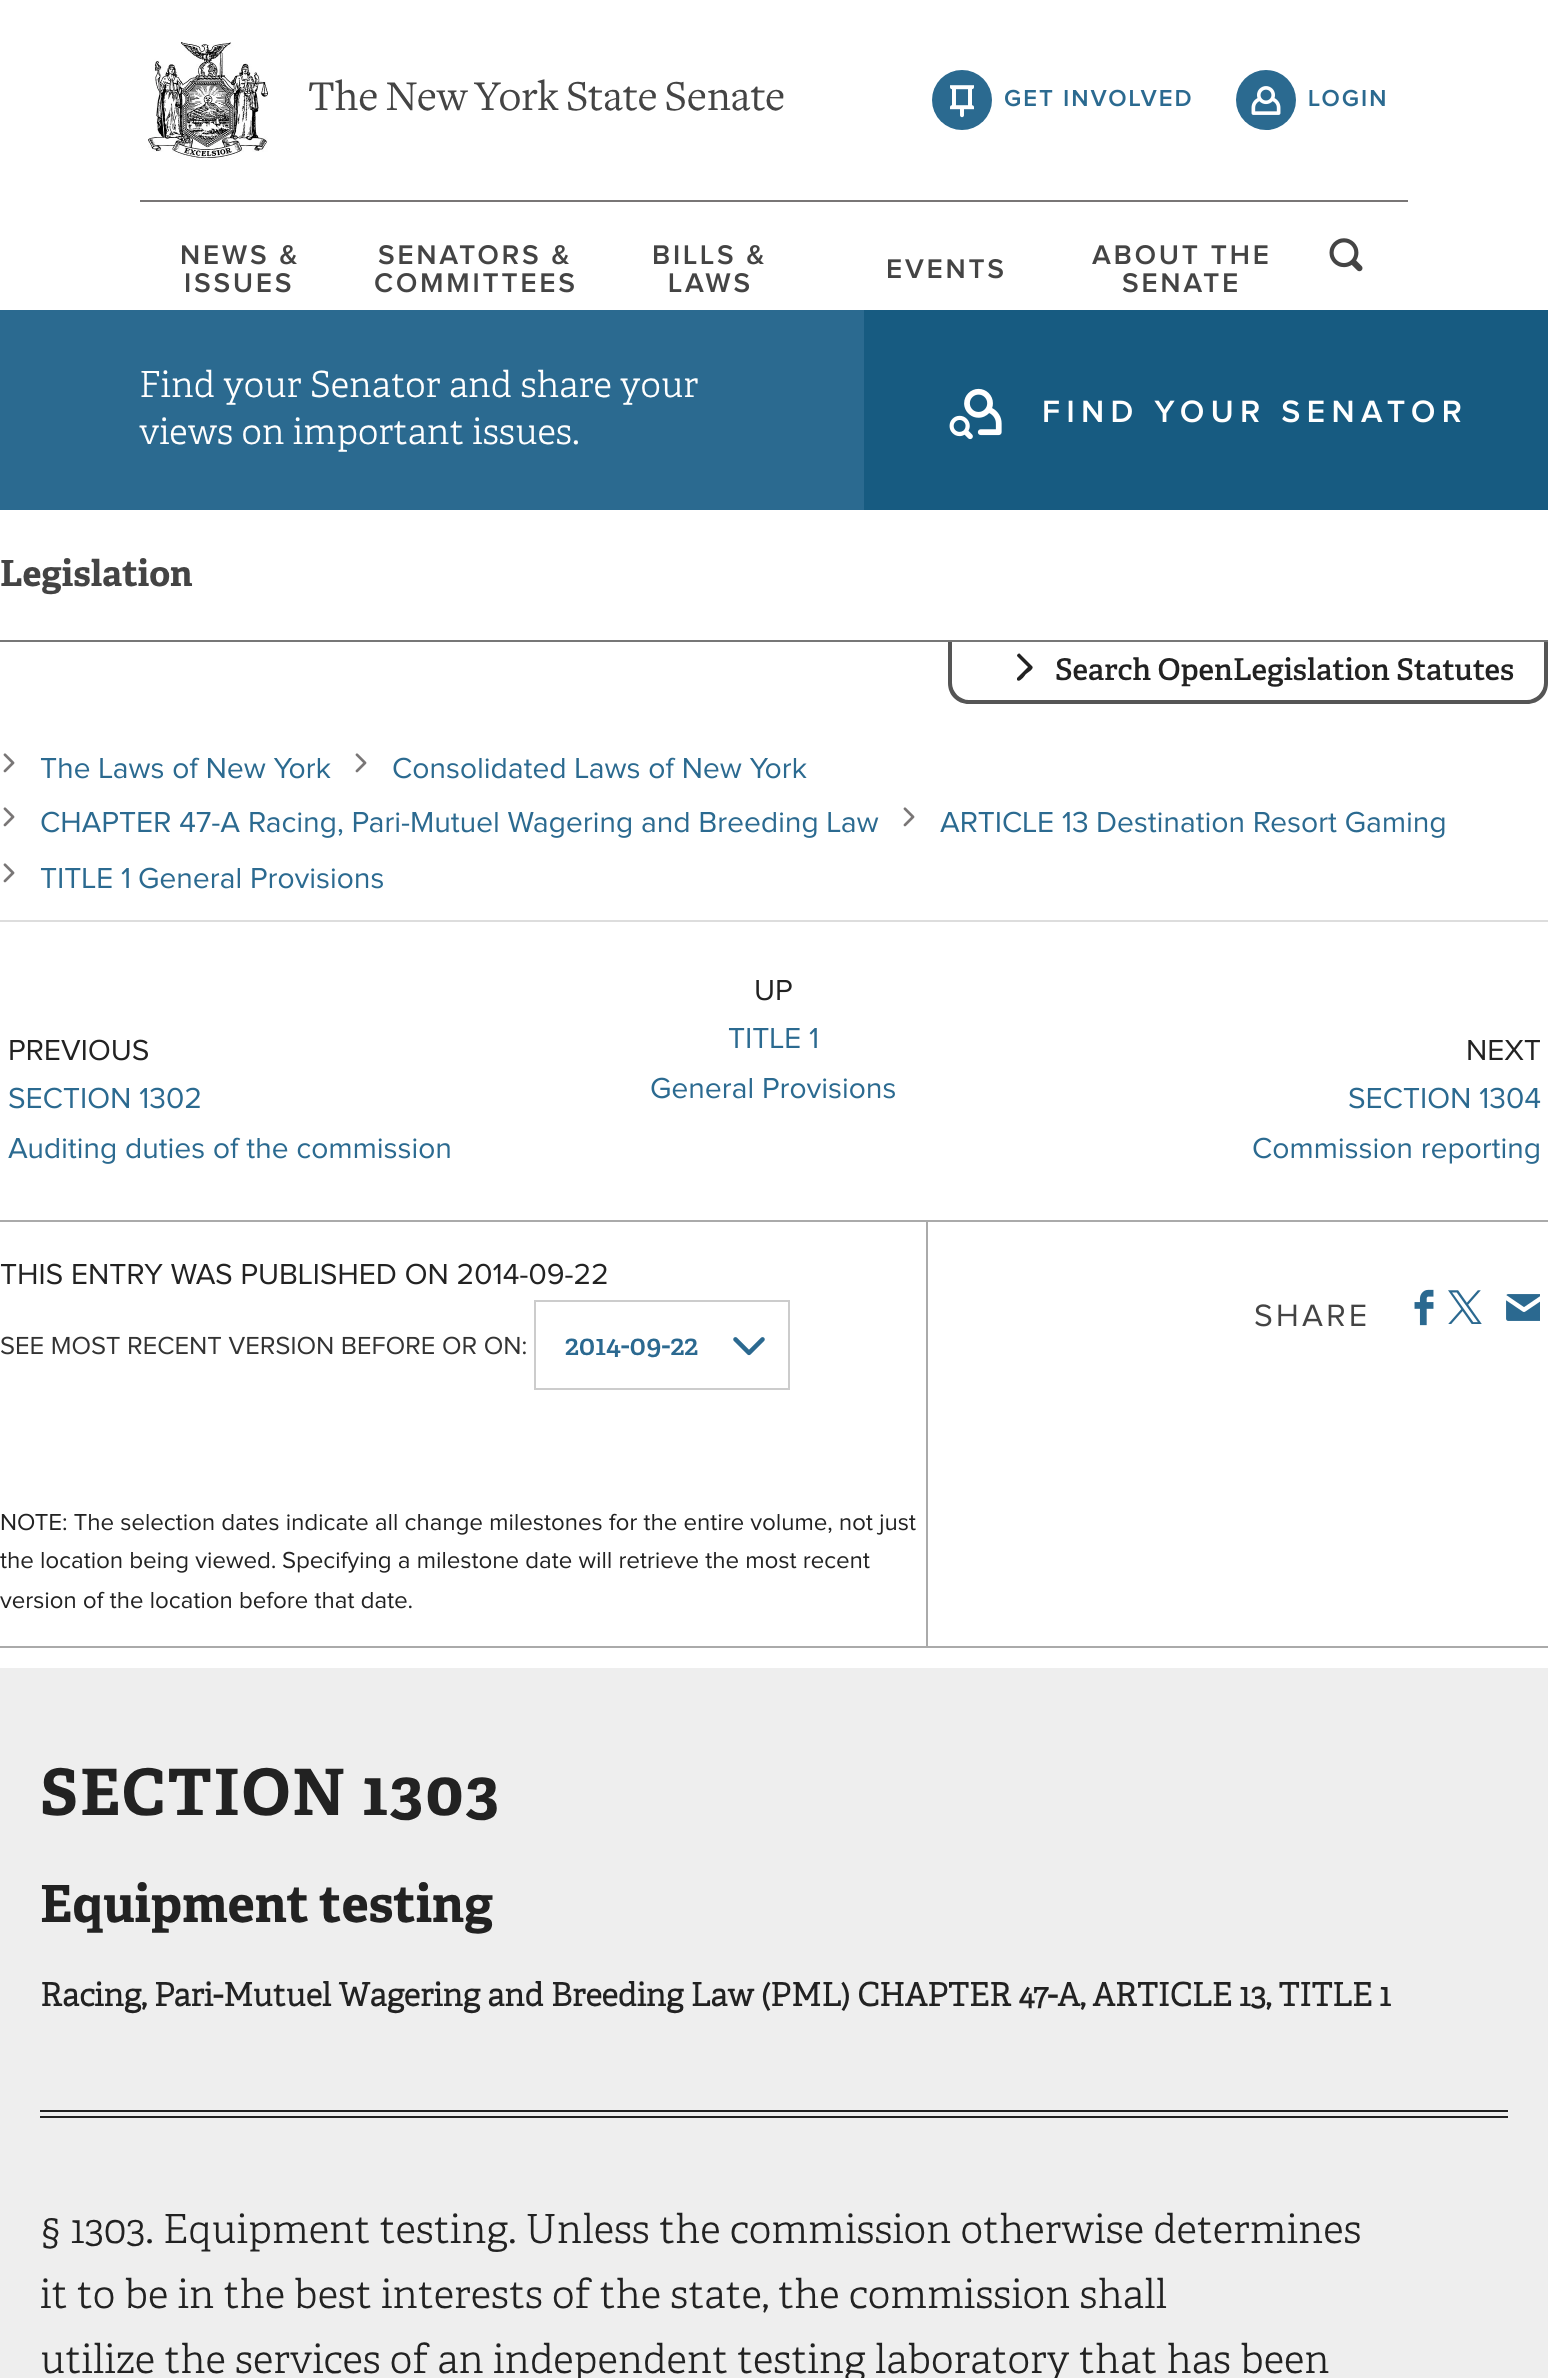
<svg xmlns="http://www.w3.org/2000/svg" width="1548" height="2378">
<rect width="100%" height="100%" fill="#fff"/>
<image x="148" y="42" width="120" height="118" href="media/1.png"/>
<text x="308" y="110" style="font-family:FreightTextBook;font-size:44px;fill:#444">The New York State Senate</text>
<circle cx="962" cy="100" r="30" fill="#2b6a90"/>
<image x="950" y="85" width="24" height="33" href="media/2.png"/>
<image x="1005" y="89" width="186" height="18" href="media/3.png"/>
<circle cx="1266" cy="100" r="30" fill="#2b6a90"/>
<image x="1251" y="86" width="30" height="29" href="media/4.png"/>
<image x="1309" y="89" width="76" height="18" href="media/5.png"/>
<rect x="140" y="200" width="1268" height="2" fill="#797676"/>
<image x="182" y="245" width="115" height="20" href="media/6.png"/>
<image x="186" y="273" width="105" height="20" href="media/7.png"/>
<image x="378" y="245" width="191" height="20" href="media/8.png"/>
<image x="375" y="273" width="199" height="20" href="media/9.png"/>
<image x="654" y="245" width="110" height="20" href="media/10.png"/>
<image x="669" y="273" width="81" height="20" href="media/11.png"/>
<image x="888" y="259" width="115" height="20" href="media/12.png"/>
<image x="1092" y="245" width="176" height="20" href="media/13.png"/>
<image x="1122" y="273" width="115" height="20" href="media/14.png"/>
<image x="1329" y="238" width="34" height="34" href="media/15.png"/>
<rect y="310" width="864" height="200" fill="#2b6a90"/>
<text x="139" y="397" style="font-family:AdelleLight;font-size:36px;font-weight:300;fill:#fff">Find your Senator and share your</text>
<text x="139" y="444" style="font-family:AdelleLight;font-size:36px;font-weight:300;fill:#fff">views on important issues.</text>
<rect x="864" y="310" width="684" height="200" fill="#175b81"/>
<image x="949" y="388" width="53" height="52" href="media/16.png"/>
<image x="1044" y="400" width="417" height="23" href="media/17.png"/>
<text x="0" y="586" style="font-family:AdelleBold;font-size:36px;font-weight:bold;fill:#444">Legislation</text>
<rect y="640" width="1548" height="2" fill="#777"/>
<path d="M948 642h600v41c0 12-9 21-21 21h-558c-12 0-21-9-21-21zm4 0h592v41c0 9-8 17-17 17h-558c-9 0-17-8-17-17z" fill="#555" fill-rule="evenodd"/>
<path d="M982 686zm50-20l-12-12c-1-1-3 0-3 2l11 11l-11 11v2c3 3 8-5 9-6l4-3c1-1 4-3 2-5z" fill="#222"/>
<text x="1055" y="680" style="font-family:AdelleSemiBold;font-size:30px;font-weight:600;fill:#222">Search OpenLegislation Statutes</text>
<rect y="920" width="1548" height="2" fill="#ddd"/>
<image x="3" y="753" width="12" height="20" href="media/18.png"/>
<image x="40" y="757" width="291" height="22" href="media/19.png"/>
<image x="355" y="753" width="12" height="20" href="media/18.png"/>
<image x="393" y="757" width="414" height="22" href="media/20.png"/>
<image x="3" y="807" width="12" height="20" href="media/18.png"/>
<image x="41" y="811" width="199" height="22" href="media/21.png"/>
<image x="250" y="812" width="629" height="26" href="media/22.png"/>
<image x="903" y="807" width="12" height="20" href="media/18.png"/>
<image x="940" y="811" width="148" height="22" href="media/23.png"/>
<image x="1098" y="811" width="347" height="27" href="media/24.png"/>
<image x="3" y="863" width="12" height="20" href="media/18.png"/>
<image x="40" y="868" width="89" height="20" href="media/25.png"/>
<image x="139" y="867" width="244" height="22" href="media/26.png"/>
<image x="10" y="1039" width="138" height="22" href="media/27.png"/>
<image x="9" y="1087" width="191" height="22" href="media/28.png"/>
<image x="8" y="1137" width="442" height="27" href="media/29.png"/>
<image x="756" y="980" width="36" height="21" href="media/30.png"/>
<image x="728" y="1028" width="89" height="20" href="media/25.png"/>
<image x="651" y="1077" width="244" height="22" href="media/26.png"/>
<image x="1468" y="1040" width="72" height="20" href="media/31.png"/>
<image x="1349" y="1087" width="192" height="22" href="media/32.png"/>
<image x="1253" y="1137" width="286" height="27" href="media/33.png"/>
<rect y="1220" width="1548" height="2" fill="#aaa"/>
<rect y="1646" width="1548" height="2" fill="#aaa"/>
<image x="1255" y="1304" width="111" height="23" href="media/34.png"/>
<image x="1414" y="1289" width="20" height="37" href="media/35.png"/>
<image x="1448" y="1290" width="34" height="34" href="media/36.png"/>
<image x="1506" y="1294" width="34" height="27" href="media/37.png"/>
<rect x="926" y="1222" width="2" height="424" fill="#aaa"/>
<image x="0" y="1263" width="607" height="22" href="media/38.png"/>
<image x="1" y="1336" width="525" height="19" href="media/39.png"/>
<rect x="535" y="1301" width="254" height="88" fill="none" stroke="#ccc" stroke-width="2"/>
<text x="565" y="1355" style="font-family:AdelleSemiBold;font-size:28px;font-weight:600;fill:#2b6990">2014-09-22</text>
<image x="733" y="1337" width="32" height="19" href="media/40.png"/>
<image x="1" y="1513" width="915" height="22" href="media/41.png"/>
<image x="0" y="1552" width="275" height="21" href="media/42.png"/>
<image x="283" y="1551" width="587" height="22" href="media/43.png"/>
<image x="0" y="1591" width="412" height="18" href="media/44.png"/>
<rect y="1668" width="1548" height="710" fill="#eee"/>
<text x="40" y="1815" style="font-family:AdelleBold;font-size:64px;font-weight:bold;letter-spacing:2px;fill:#222">SECTION 1303</text>
<text x="40" y="1922" style="font-family:AdelleBold;font-size:51.25px;font-weight:bold;fill:#222">Equipment testing</text>
<text x="40" y="2006" style="font-family:AdelleLight;font-size:32px;font-weight:bold;fill:#222">Racing, Pari-Mutuel Wagering and Breeding Law (PML) CHAPTER 47-A, ARTICLE 13, TITLE 1</text>
<rect x="40" y="2110" width="1468" height="2" fill="#222"/>
<rect x="40" y="2116" width="1468" height="2" fill="#222"/>
<text x="40" y="2243" style="font-family:AdelleLight;font-size:40px;font-weight:300;fill:#222">§ 1303. Equipment testing. Unless the commission otherwise determines</text>
<text x="40" y="2308" style="font-family:AdelleLight;font-size:40px;font-weight:300;fill:#222">it to be in the best interests of the state, the commission shall</text>
<text x="40" y="2373" style="font-family:AdelleLight;font-size:40px;font-weight:300;fill:#222">utilize the services of an independent testing laboratory that has been</text>
</svg>
